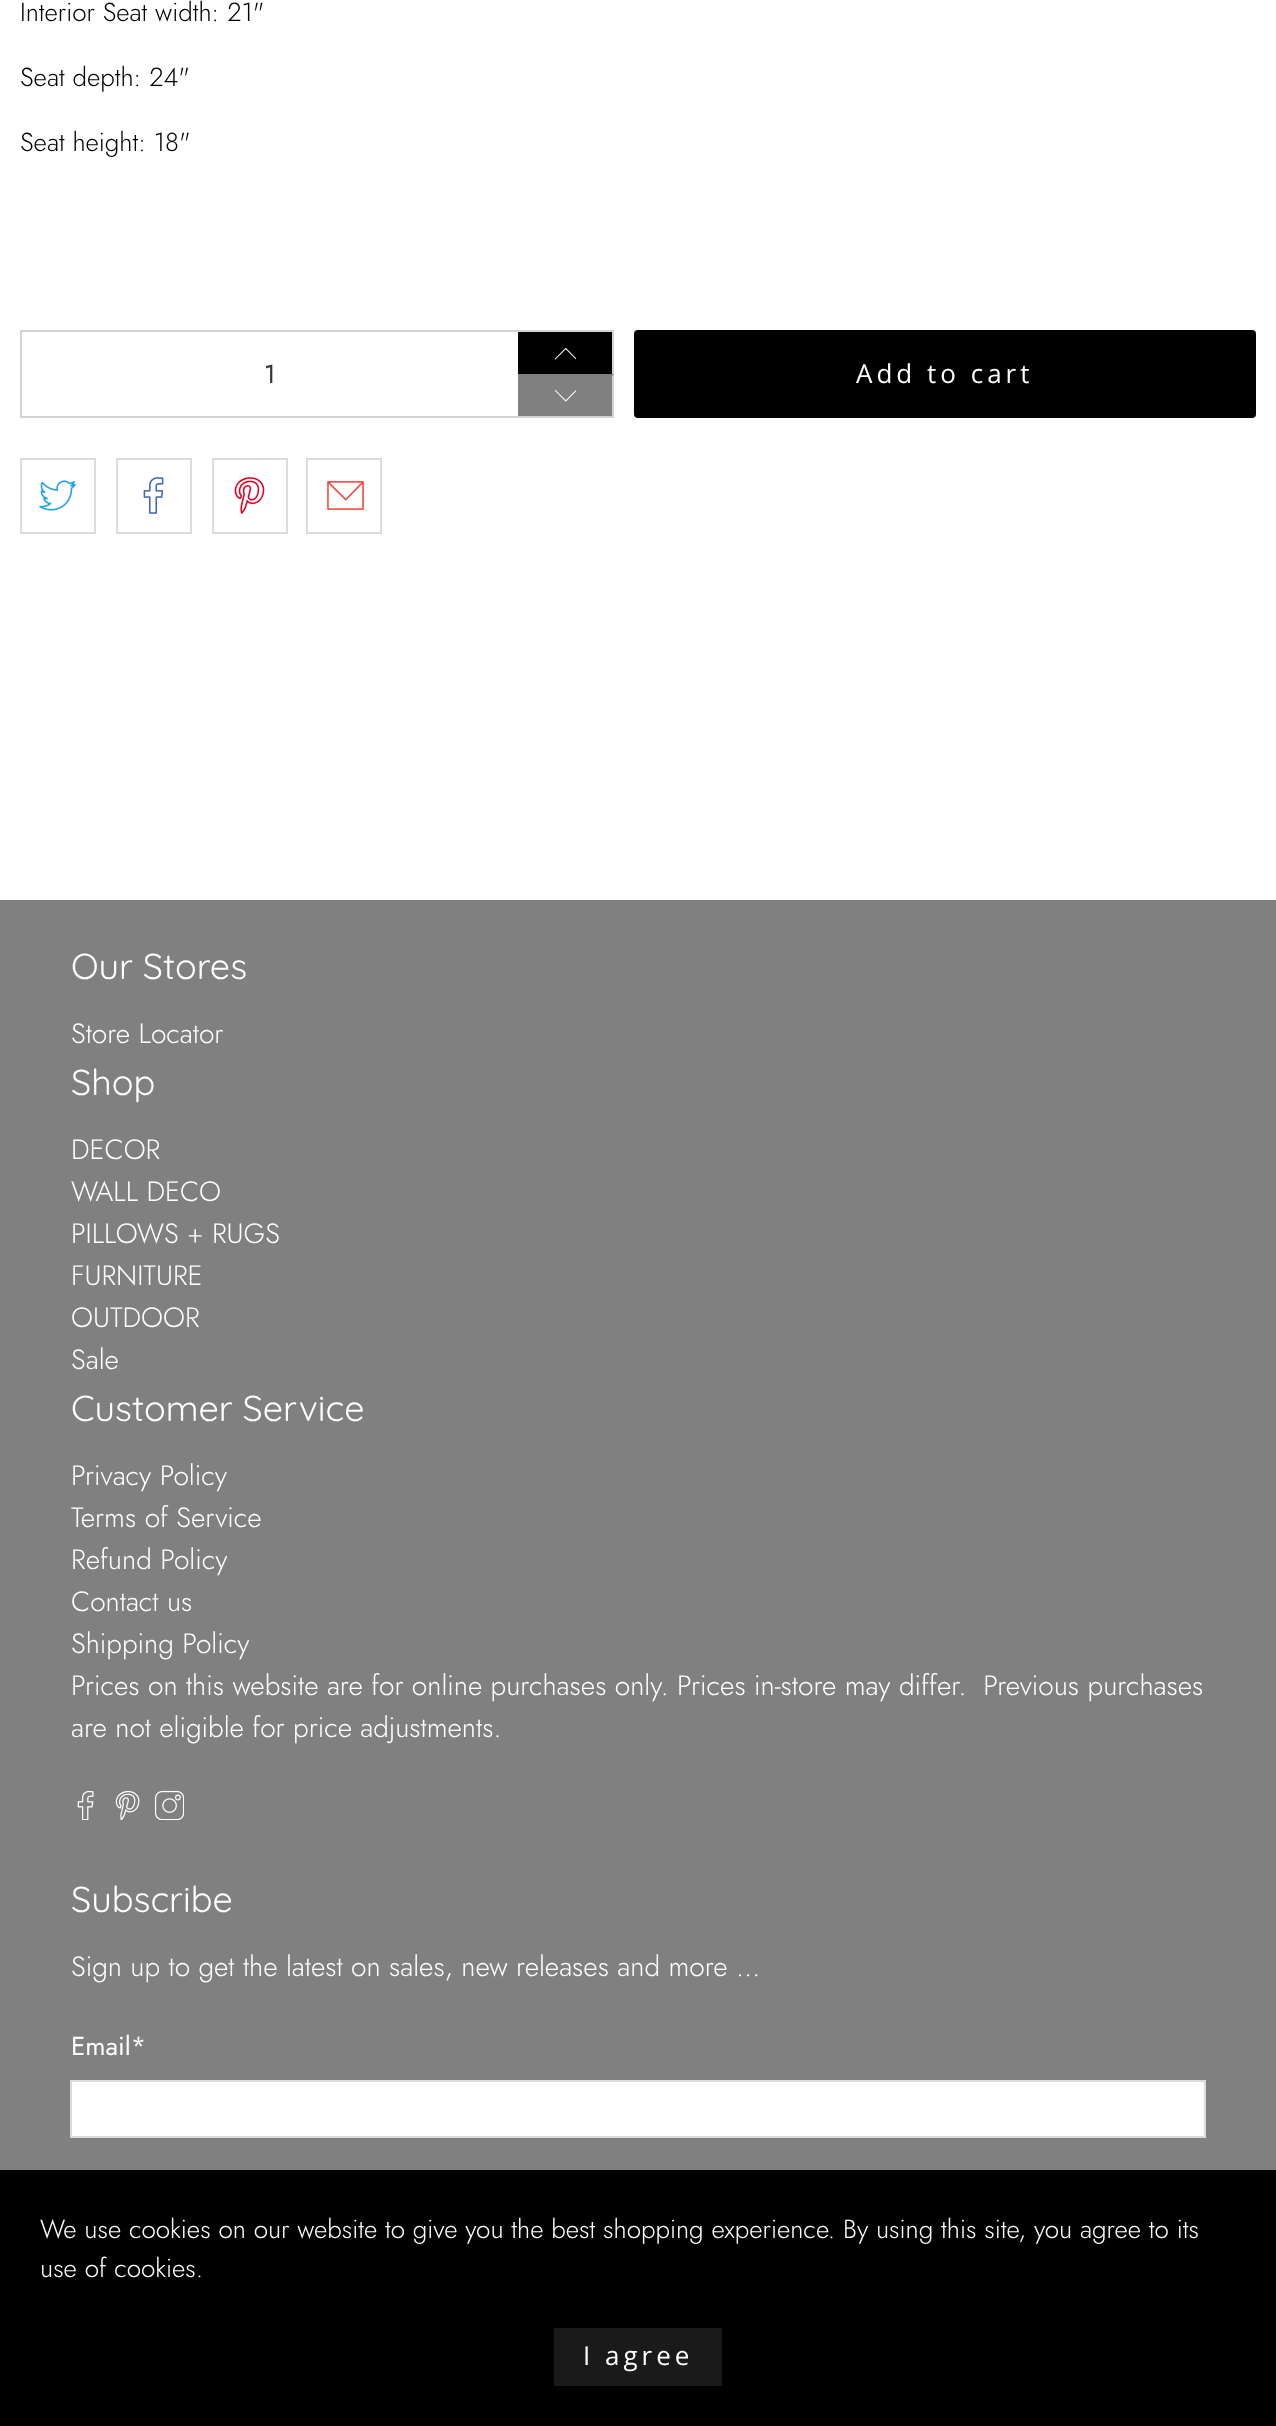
<svg xmlns="http://www.w3.org/2000/svg" width="1276" height="2426">
<rect width="100%" height="100%" fill="#fff"/>
<text x="20" y="21" style="font-family:Jost;font-size:26px;font-weight:300;fill:#000">Interior Seat width: 21"</text>
<text x="20" y="86" style="font-family:Jost;font-size:26px;font-weight:300;fill:#000">Seat depth: 24"</text>
<text x="20" y="151" style="font-family:Jost;font-size:26px;font-weight:300;fill:#000">Seat height: 18"</text>
<rect x="20" y="330" width="594" height="2" fill="#d3d3d3"/>
<rect x="20" y="416" width="498" height="2" fill="#d3d3d3"/>
<rect x="20" y="330" width="2" height="88" fill="#d3d3d3"/>
<text x="264" y="383" style="font-family:Jost;font-size:26px;fill:#363636">1</text>
<rect x="518" y="332" width="94" height="42" fill="#000"/>
<rect x="612" y="330" width="2" height="44" fill="#d3d3d3"/>
<image x="554" y="347" width="22" height="13" href="media/1.png"/>
<rect x="518" y="374" width="96" height="42" fill="#808080"/>
<path d="M614 374v44l-2-2v-40z" fill="#d3d3d3"/>
<rect x="518" y="416" width="96" height="2" fill="#d3d3d3"/>
<image x="554" y="390" width="22" height="12" href="media/2.png"/>
<rect x="634" y="330" width="622" height="88" rx="4" fill="#000"/>
<text x="856" y="383" style="font-family:Open Sans;font-size:26px;letter-spacing:4px;fill:#fff">Add to cart</text>
<rect x="21" y="459" width="74" height="74" fill="none" stroke="#dbdbdb" stroke-width="2"/>
<image x="39" y="480" width="37" height="31" href="media/3.png"/>
<rect x="117" y="459" width="74" height="74" fill="none" stroke="#dbdbdb" stroke-width="2"/>
<image x="143" y="477" width="21" height="37" href="media/4.png"/>
<rect x="213" y="459" width="74" height="74" fill="none" stroke="#dbdbdb" stroke-width="2"/>
<image x="234" y="477" width="31" height="37" href="media/5.png"/>
<rect x="307" y="459" width="74" height="74" fill="none" stroke="#dbdbdb" stroke-width="2"/>
<image x="327" y="481" width="37" height="29" href="media/6.png"/>
<rect y="900" width="1276" height="1270" fill="#808080"/>
<text x="71" y="979" style="font-family:Quicksand;font-size:36px;fill:#fff">Our Stores</text>
<text x="71" y="1043" style="font-family:Jost;font-size:28px;font-weight:300;fill:#fff">Store Locator</text>
<text x="71" y="1095" style="font-family:Quicksand;font-size:36px;fill:#fff">Shop</text>
<text x="71" y="1159" style="font-family:Jost;font-size:28px;font-weight:300;fill:#fff">DECOR</text>
<text x="71" y="1201" style="font-family:Jost;font-size:28px;font-weight:300;fill:#fff">WALL DECO</text>
<text x="71" y="1243" style="font-family:Jost;font-size:28px;font-weight:300;fill:#fff">PILLOWS + RUGS</text>
<text x="71" y="1285" style="font-family:Jost;font-size:28px;font-weight:300;fill:#fff">FURNITURE</text>
<text x="71" y="1327" style="font-family:Jost;font-size:28px;font-weight:300;fill:#fff">OUTDOOR</text>
<text x="71" y="1369" style="font-family:Jost;font-size:28px;font-weight:300;fill:#fff">Sale</text>
<text x="71" y="1421" style="font-family:Quicksand;font-size:36px;fill:#fff">Customer Service</text>
<text x="71" y="1485" style="font-family:Jost;font-size:28px;font-weight:300;fill:#fff">Privacy Policy</text>
<text x="71" y="1527" style="font-family:Jost;font-size:28px;font-weight:300;fill:#fff">Terms of Service</text>
<text x="71" y="1569" style="font-family:Jost;font-size:28px;font-weight:300;fill:#fff">Refund Policy</text>
<text x="71" y="1611" style="font-family:Jost;font-size:28px;font-weight:300;fill:#fff">Contact us</text>
<text x="71" y="1653" style="font-family:Jost;font-size:28px;font-weight:300;fill:#fff">Shipping Policy</text>
<text x="71" y="1695" style="font-family:Jost;font-size:28px;font-weight:300;fill:#fff" xml:space="preserve">Prices on this website are for online purchases only. Prices in-store may differ.  Previous purchases</text>
<text x="71" y="1737" style="font-family:Jost;font-size:28px;font-weight:300;fill:#fff">are not eligible for price adjustments.</text>
<image x="77" y="1790" width="17" height="30" href="media/7.png"/>
<image x="115" y="1790" width="25" height="30" href="media/8.png"/>
<image x="154" y="1790" width="30" height="30" href="media/9.png"/>
<text x="71" y="1912" style="font-family:Quicksand;font-size:36px;fill:#fff">Subscribe</text>
<text x="71" y="1976" style="font-family:Jost;font-size:28px;font-weight:300;fill:#fff">Sign up to get the latest on sales, new releases and more …</text>
<text x="71" y="2055" style="font-family:Jost;font-size:26px;fill:#fff">Email*</text>
<rect x="71" y="2081" width="1134" height="56" fill="#fff" stroke="#dbdbdb" stroke-width="2"/>
<rect y="2170" width="1276" height="256" fill="#000"/>
<text x="40" y="2238" style="font-family:Jost;font-size:26px;font-weight:300;fill:#fff">We use cookies on our website to give you the best shopping experience. By using this site, you agree to its</text>
<text x="40" y="2277" style="font-family:Jost;font-size:26px;font-weight:300;fill:#fff">use of cookies.</text>
<rect x="554" y="2328" width="168" height="58" fill="#1a1a1a"/>
<text x="583" y="2365" style="font-family:Open Sans;font-size:26px;letter-spacing:4px;fill:#fff">I agree</text>
</svg>
